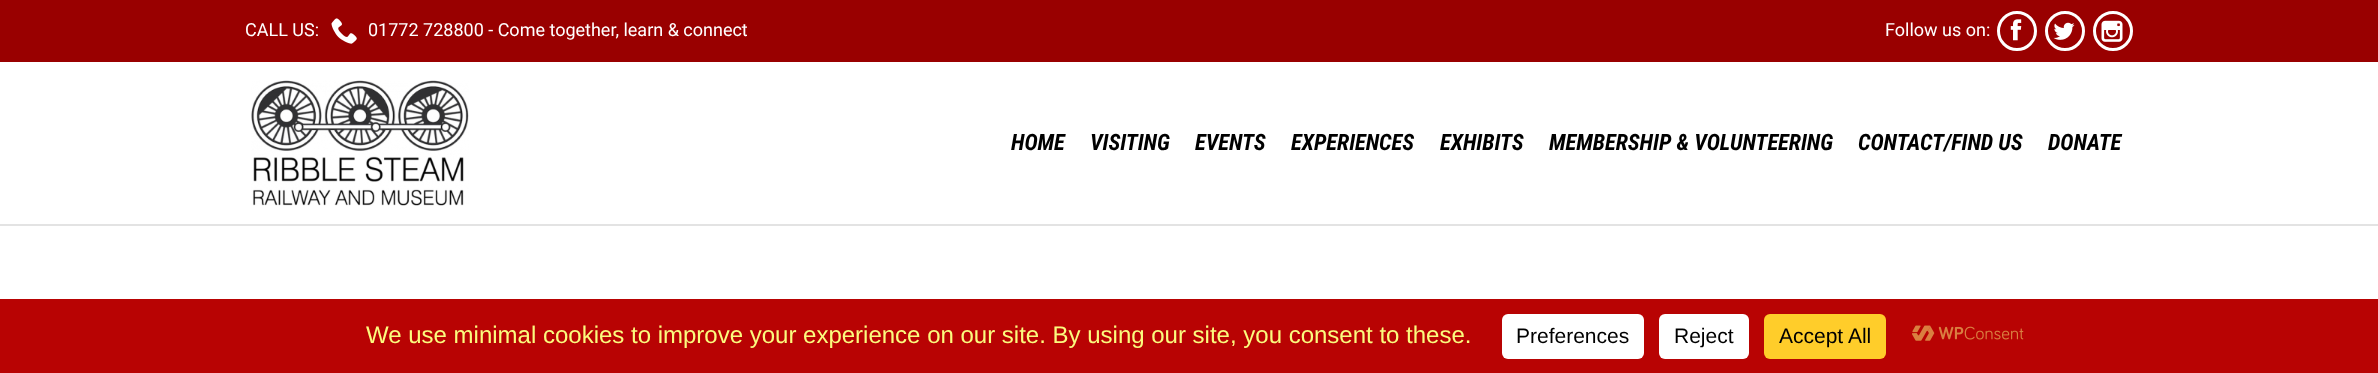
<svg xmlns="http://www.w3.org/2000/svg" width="2378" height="373">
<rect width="100%" height="100%" fill="#fff"/>
<rect y="224" width="2378" height="2" fill="#e3e3e3"/>
<rect width="2378" height="62" fill="#900"/>
<text x="245" y="36" style="font-family:Roboto;font-size:18px;fill:#fff">CALL US:</text>
<image x="331" y="18" width="26" height="26" href="media/1.png"/>
<text x="368" y="36" style="font-family:Roboto;font-size:18px;fill:#fff">01772 728800 - Come together, learn &amp; connect</text>
<text x="1885" y="36" style="font-family:Roboto;font-size:18px;fill:#fff">Follow us on:</text>
<circle cx="2017" cy="31" r="18.5" fill="none" stroke="#fff" stroke-width="3"/>
<image x="2010" y="19" width="12" height="22" href="media/2.png"/>
<circle cx="2065" cy="31" r="18.5" fill="none" stroke="#fff" stroke-width="3"/>
<image x="2053" y="22" width="22" height="18" href="media/3.png"/>
<circle cx="2113" cy="31" r="18.5" fill="none" stroke="#fff" stroke-width="3"/>
<image x="2101" y="20" width="22" height="22" href="media/4.png"/>
<image x="251" y="80" width="218" height="126" href="media/5.png"/>
<text x="1011" y="150" style="font-family:Roboto Condensed;font-size:22.5px;font-weight:bold;font-style:italic;fill:#000">HOME</text>
<text x="1090" y="150" style="font-family:Roboto Condensed;font-size:22.5px;font-weight:bold;font-style:italic;fill:#000">VISITING</text>
<text x="1195" y="150" style="font-family:Roboto Condensed;font-size:22.5px;font-weight:bold;font-style:italic;fill:#000">EVENTS</text>
<text x="1291" y="150" style="font-family:Roboto Condensed;font-size:22.5px;font-weight:bold;font-style:italic;fill:#000">EXPERIENCES</text>
<text x="1440" y="150" style="font-family:Roboto Condensed;font-size:22.5px;font-weight:bold;font-style:italic;fill:#000">EXHIBITS</text>
<text x="1549" y="150" style="font-family:Roboto Condensed;font-size:22.5px;font-weight:bold;font-style:italic;fill:#000">MEMBERSHIP &amp; VOLUNTEERING</text>
<text x="1858" y="150" style="font-family:Roboto Condensed;font-size:22.5px;font-weight:bold;font-style:italic;fill:#000">CONTACT/FIND US</text>
<text x="2048" y="150" style="font-family:Roboto Condensed;font-size:22.5px;font-weight:bold;font-style:italic;fill:#000">DONATE</text>
<rect y="299" width="2378" height="74" fill="#b80303"/>
<text x="366" y="343" style="font-family:Liberation Sans;font-size:24px;fill:#fbfb7e">We use minimal cookies to improve your experience on our site. By using our site, you consent to these.</text>
<rect x="1502" y="314" width="142" height="45" rx="6" fill="#fff"/>
<text x="1516" y="343" style="font-family:Liberation Sans;font-size:21px;fill:#000">Preferences</text>
<rect x="1659" y="314" width="90" height="45" rx="6" fill="#fff"/>
<text x="1674" y="343" style="font-family:Liberation Sans;font-size:21px;fill:#000">Reject</text>
<rect x="1764" y="314" width="122" height="45" rx="6" fill="#ffcd2a"/>
<text x="1779" y="343" style="font-family:Liberation Sans;font-size:21px;fill:#000">Accept All</text>
<image x="1912" y="325" width="112" height="16" href="media/6.png"/>
</svg>
